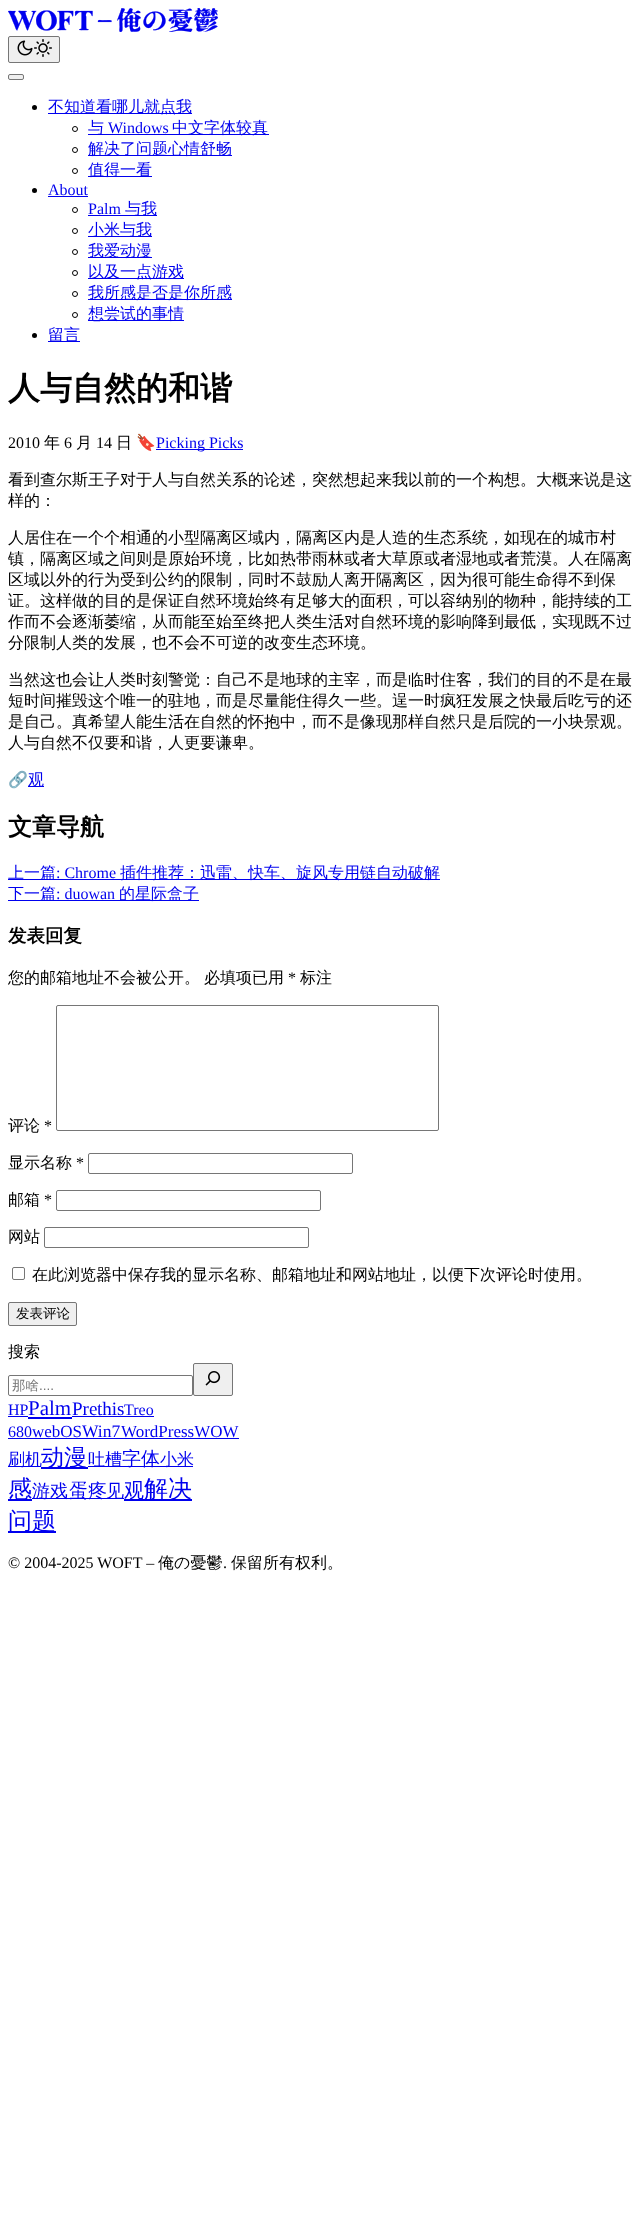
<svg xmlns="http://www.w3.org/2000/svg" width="642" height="2214">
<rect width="100%" height="100%" fill="#fff"/>
<image x="8" y="8" width="210" height="24" href="media/1.png"/>
<rect x="8.5" y="36.5" width="51" height="26" rx="1.5" fill="#efefef" stroke="#767676"/>
<image x="17" y="40" width="16" height="16" href="media/2.png"/>
<image x="34" y="39" width="18" height="18" href="media/3.png"/>
<rect x="8.5" y="74.5" width="15" height="5" rx="1.5" fill="#efefef" stroke="#767676"/>
<circle cx="34.5" cy="107.5" r="2.5" fill="#000"/>
<rect x="48" y="113" width="144" height="1" fill="#00e"/>
<text x="48" y="112" style="font-family:WenQuanYi Zen Hei;font-size:16px;font-weight:500;fill:#00e">不知道看哪儿就点我</text>
<circle cx="75" cy="129" r="2.5" fill="none" stroke="#000"/>
<rect x="88" y="134" width="181" height="1" fill="#00e"/>
<text x="88" y="133" style="font-family:WenQuanYi Zen Hei;font-size:16px;font-weight:500;fill:#00e">与</text>
<text x="108" y="133" style="font-family:Liberation Serif;font-size:16px;fill:#00e">Windows</text>
<text x="172" y="133" style="font-family:WenQuanYi Zen Hei;font-size:16px;font-weight:500;fill:#00e">中文字体较真</text>
<circle cx="75" cy="150" r="2.5" fill="none" stroke="#000"/>
<rect x="88" y="155" width="144" height="1" fill="#00e"/>
<text x="88" y="154" style="font-family:WenQuanYi Zen Hei;font-size:16px;font-weight:500;fill:#00e">解决了问题心情舒畅</text>
<circle cx="75" cy="171" r="2.5" fill="none" stroke="#000"/>
<rect x="88" y="176" width="64" height="1" fill="#00e"/>
<text x="88" y="175" style="font-family:WenQuanYi Zen Hei;font-size:16px;font-weight:500;fill:#00e">值得一看</text>
<circle cx="34.5" cy="190.5" r="2.5" fill="#000"/>
<text x="48" y="195" style="font-family:Liberation Serif;font-size:16px;fill:#00e">About</text>
<rect x="48" y="196" width="40" height="1" fill="#00e"/>
<circle cx="75" cy="210" r="2.5" fill="none" stroke="#000"/>
<text x="88" y="214" style="font-family:Liberation Serif;font-size:16px;fill:#00e">Palm</text>
<rect x="88" y="215" width="69" height="1" fill="#00e"/>
<text x="125" y="214" style="font-family:WenQuanYi Zen Hei;font-size:16px;font-weight:500;fill:#00e">与我</text>
<circle cx="75" cy="231" r="2.5" fill="none" stroke="#000"/>
<rect x="88" y="236" width="64" height="1" fill="#00e"/>
<text x="88" y="235" style="font-family:WenQuanYi Zen Hei;font-size:16px;font-weight:500;fill:#00e">小米与我</text>
<circle cx="75" cy="252" r="2.5" fill="none" stroke="#000"/>
<rect x="88" y="257" width="64" height="1" fill="#00e"/>
<text x="88" y="256" style="font-family:WenQuanYi Zen Hei;font-size:16px;font-weight:500;fill:#00e">我爱动漫</text>
<circle cx="75" cy="273" r="2.5" fill="none" stroke="#000"/>
<rect x="88" y="278" width="96" height="1" fill="#00e"/>
<text x="88" y="277" style="font-family:WenQuanYi Zen Hei;font-size:16px;font-weight:500;fill:#00e">以及一点游戏</text>
<circle cx="75" cy="294" r="2.5" fill="none" stroke="#000"/>
<rect x="88" y="299" width="144" height="1" fill="#00e"/>
<text x="88" y="298" style="font-family:WenQuanYi Zen Hei;font-size:16px;font-weight:500;fill:#00e">我所感是否是你所感</text>
<circle cx="75" cy="315" r="2.5" fill="none" stroke="#000"/>
<rect x="88" y="320" width="96" height="1" fill="#00e"/>
<text x="88" y="319" style="font-family:WenQuanYi Zen Hei;font-size:16px;font-weight:500;fill:#00e">想尝试的事情</text>
<circle cx="34.5" cy="335.5" r="2.5" fill="#000"/>
<rect x="48" y="341" width="32" height="1" fill="#00e"/>
<text x="48" y="340" style="font-family:WenQuanYi Zen Hei;font-size:16px;font-weight:500;fill:#00e">留言</text>
<text x="8" y="399" style="font-family:WenQuanYi Zen Hei;font-size:32px;font-weight:bold;fill:#000">人与自然的和谐</text>
<text x="8" y="448" style="font-family:Liberation Serif;font-size:16px;fill:#000">2010</text>
<text x="44" y="448" style="font-family:WenQuanYi Zen Hei;font-size:16px;font-weight:500;fill:#000">年</text>
<text x="64" y="448" style="font-family:Liberation Serif;font-size:16px;fill:#000">6</text>
<text x="76" y="448" style="font-family:WenQuanYi Zen Hei;font-size:16px;font-weight:500;fill:#000">月</text>
<text x="96" y="448" style="font-family:Liberation Serif;font-size:16px;fill:#000">14</text>
<text x="116" y="448" style="font-family:WenQuanYi Zen Hei;font-size:16px;font-weight:500;fill:#000">日</text>
<text x="136" y="448" style="font-family:Noto Color Emoji;font-size:16px;fill:#000">🔖</text>
<rect x="156" y="449" width="87" height="1" fill="#00e"/>
<text x="156" y="448" style="font-family:Liberation Serif;font-size:16px;fill:#00e">Picking Picks</text>
<text x="8" y="485" style="font-family:WenQuanYi Zen Hei;font-size:16px;font-weight:500;fill:#000">看到查尔斯王子对于人与自然关系的论述，突然想起来我以前的一个构想。大概来说是这</text>
<text x="8" y="506" style="font-family:WenQuanYi Zen Hei;font-size:16px;font-weight:500;fill:#000">样的：</text>
<text x="8" y="543" style="font-family:WenQuanYi Zen Hei;font-size:16px;font-weight:500;fill:#000">人居住在一个个相通的小型隔离区域内，隔离区内是人造的生态系统，如现在的城市村</text>
<text x="8" y="564" style="font-family:WenQuanYi Zen Hei;font-size:16px;font-weight:500;fill:#000">镇，隔离区域之间则是原始环境，比如热带雨林或者大草原或者湿地或者荒漠。人在隔离</text>
<text x="8" y="585" style="font-family:WenQuanYi Zen Hei;font-size:16px;font-weight:500;fill:#000">区域以外的行为受到公约的限制，同时不鼓励人离开隔离区，因为很可能生命得不到保</text>
<text x="8" y="606" style="font-family:WenQuanYi Zen Hei;font-size:16px;font-weight:500;fill:#000">证。这样做的目的是保证自然环境始终有足够大的面积，可以容纳别的物种，能持续的工</text>
<text x="8" y="627" style="font-family:WenQuanYi Zen Hei;font-size:16px;font-weight:500;fill:#000">作而不会逐渐萎缩，从而能至始至终把人类生活对自然环境的影响降到最低，实现既不过</text>
<text x="8" y="648" style="font-family:WenQuanYi Zen Hei;font-size:16px;font-weight:500;fill:#000">分限制人类的发展，也不会不可逆的改变生态环境。</text>
<text x="8" y="685" style="font-family:WenQuanYi Zen Hei;font-size:16px;font-weight:500;fill:#000">当然这也会让人类时刻警觉：自己不是地球的主宰，而是临时住客，我们的目的不是在最</text>
<text x="8" y="706" style="font-family:WenQuanYi Zen Hei;font-size:16px;font-weight:500;fill:#000">短时间摧毁这个唯一的驻地，而是尽量能住得久一些。逞一时疯狂发展之快最后吃亏的还</text>
<text x="8" y="727" style="font-family:WenQuanYi Zen Hei;font-size:16px;font-weight:500;fill:#000">是自己。真希望人能生活在自然的怀抱中，而不是像现那样自然只是后院的一小块景观。</text>
<text x="8" y="748" style="font-family:WenQuanYi Zen Hei;font-size:16px;font-weight:500;fill:#000">人与自然不仅要和谐，人更要谦卑。</text>
<text x="8" y="785" style="font-family:Noto Color Emoji;font-size:16px;fill:#000">🔗</text>
<rect x="28" y="786" width="16" height="1" fill="#00e"/>
<text x="28" y="785" style="font-family:WenQuanYi Zen Hei;font-size:16px;font-weight:500;fill:#00e">观</text>
<text x="8" y="835" style="font-family:WenQuanYi Zen Hei;font-size:24px;font-weight:bold;fill:#000">文章导航</text>
<rect x="8" y="879" width="432" height="1" fill="#00e"/>
<text x="8" y="878" style="font-family:WenQuanYi Zen Hei;font-size:16px;font-weight:500;fill:#00e">上一篇</text>
<text x="56" y="878" style="font-family:Liberation Serif;font-size:16px;fill:#00e">: Chrome</text>
<text x="120" y="878" style="font-family:WenQuanYi Zen Hei;font-size:16px;font-weight:500;fill:#00e">插件推荐：迅雷、快车、旋风专用链自动破解</text>
<rect x="8" y="900" width="191" height="1" fill="#00e"/>
<text x="8" y="899" style="font-family:WenQuanYi Zen Hei;font-size:16px;font-weight:500;fill:#00e">下一篇</text>
<text x="56" y="899" style="font-family:Liberation Serif;font-size:16px;fill:#00e">: duowan</text>
<text x="119" y="899" style="font-family:WenQuanYi Zen Hei;font-size:16px;font-weight:500;fill:#00e">的星际盒子</text>
<text x="8" y="942" style="font-family:WenQuanYi Zen Hei;font-size:18.5px;font-weight:bold;fill:#000">发表回复</text>
<text x="8" y="983" style="font-family:WenQuanYi Zen Hei;font-size:16px;font-weight:500;fill:#000">您的邮箱地址不会被公开。</text>
<text x="204" y="983" style="font-family:WenQuanYi Zen Hei;font-size:16px;font-weight:500;fill:#000">必填项已用</text>
<text x="288" y="983" style="font-family:Liberation Serif;font-size:16px;fill:#000">*</text>
<text x="300" y="983" style="font-family:WenQuanYi Zen Hei;font-size:16px;font-weight:500;fill:#000">标注</text>
<text x="8" y="1131" style="font-family:WenQuanYi Zen Hei;font-size:16px;font-weight:500;fill:#000">评论</text>
<text x="44" y="1131" style="font-family:Liberation Serif;font-size:16px;fill:#000">*</text>
<rect x="56.5" y="1005.5" width="382" height="125" rx="1.5" fill="none" stroke="#767676"/>
<text x="8" y="1168" style="font-family:WenQuanYi Zen Hei;font-size:16px;font-weight:500;fill:#000">显示名称</text>
<text x="76" y="1168" style="font-family:Liberation Serif;font-size:16px;fill:#000">*</text>
<rect x="88.5" y="1153.5" width="264" height="20" rx="1.5" fill="none" stroke="#767676"/>
<text x="8" y="1205" style="font-family:WenQuanYi Zen Hei;font-size:16px;font-weight:500;fill:#000">邮箱</text>
<text x="44" y="1205" style="font-family:Liberation Serif;font-size:16px;fill:#000">*</text>
<rect x="56.5" y="1190.5" width="264" height="20" rx="1.5" fill="none" stroke="#767676"/>
<text x="8" y="1242" style="font-family:WenQuanYi Zen Hei;font-size:16px;font-weight:500;fill:#000">网站</text>
<rect x="44.5" y="1227.5" width="264" height="20" rx="1.5" fill="none" stroke="#767676"/>
<rect x="12.5" y="1267.5" width="12" height="12" rx="1.5" fill="none" stroke="#767676"/>
<text x="32" y="1280" style="font-family:WenQuanYi Zen Hei;font-size:16px;font-weight:500;fill:#000">在此浏览器中保存我的显示名称、邮箱地址和网站地址，以便下次评论时使用。</text>
<rect x="8.5" y="1302.5" width="68" height="23" rx="1.5" fill="#efefef" stroke="#767676"/>
<text x="16" y="1318" style="font-family:WenQuanYi Zen Hei;font-size:13.5px;font-weight:500;fill:#000">发表评论</text>
<text x="8" y="1357" style="font-family:WenQuanYi Zen Hei;font-size:16px;font-weight:500;fill:#000">搜索</text>
<rect x="8.5" y="1375.5" width="184" height="20" rx="1.5" fill="none" stroke="#767676"/>
<text x="12" y="1390" style="font-family:WenQuanYi Zen Hei;font-size:13.5px;font-weight:500;fill:#757575">那啥</text>
<text x="39" y="1390" style="font-family:Liberation Sans;font-size:13.5px;fill:#757575">....</text>
<rect x="193.5" y="1363.5" width="39" height="32" rx="1.5" fill="#efefef" stroke="#767676"/>
<image x="205" y="1371" width="16" height="15" href="media/4.png"/>
<text x="8" y="1415" style="font-family:Liberation Serif;font-size:16px;fill:#00e">HP</text>
<rect x="8" y="1416" width="20" height="1" fill="#00e"/>
<text x="28" y="1415" style="font-family:Liberation Serif;font-size:21px;fill:#00e">Palm</text>
<rect x="28" y="1417" width="44" height="2" fill="#00e"/>
<text x="72" y="1415" style="font-family:Liberation Serif;font-size:19px;fill:#00e">Pre</text>
<rect x="72" y="1416" width="82" height="1" fill="#00e"/>
<text x="97" y="1415" style="font-family:Liberation Serif;font-size:19px;fill:#00e">this</text>
<text x="124" y="1415" style="font-family:Liberation Serif;font-size:16px;fill:#00e">Treo</text>
<text x="8" y="1437" style="font-family:Liberation Serif;font-size:16px;fill:#00e">680</text>
<rect x="8" y="1438" width="231" height="1" fill="#00e"/>
<text x="32" y="1437" style="font-family:Liberation Serif;font-size:17px;fill:#00e">webOS</text>
<text x="82" y="1437" style="font-family:Liberation Serif;font-size:17.5px;fill:#00e">Win7</text>
<text x="121" y="1437" style="font-family:Liberation Serif;font-size:17px;fill:#00e">WordPressWOW</text>
<rect x="8" y="1466" width="33" height="1" fill="#00e"/>
<text x="8" y="1465" style="font-family:WenQuanYi Zen Hei;font-size:17px;font-weight:500;fill:#00e">刷机</text>
<rect x="41" y="1467" width="47" height="2" fill="#00e"/>
<text x="41" y="1465" style="font-family:WenQuanYi Zen Hei;font-size:23px;font-weight:500;fill:#00e">动漫</text>
<rect x="88" y="1466" width="105" height="1" fill="#00e"/>
<text x="88" y="1465" style="font-family:WenQuanYi Zen Hei;font-size:17px;font-weight:500;fill:#00e">吐槽</text>
<text x="122" y="1465" style="font-family:WenQuanYi Zen Hei;font-size:19px;font-weight:500;fill:#00e">字体</text>
<text x="160" y="1465" style="font-family:WenQuanYi Zen Hei;font-size:17px;font-weight:500;fill:#00e">小米</text>
<rect x="8" y="1499" width="24" height="2" fill="#00e"/>
<text x="8" y="1497" style="font-family:WenQuanYi Zen Hei;font-size:24px;font-weight:500;fill:#00e">感</text>
<rect x="32" y="1498" width="92" height="1" fill="#00e"/>
<text x="32" y="1497" style="font-family:WenQuanYi Zen Hei;font-size:18px;font-weight:500;fill:#00e">游戏</text>
<text x="69" y="1497" style="font-family:WenQuanYi Zen Hei;font-size:19px;font-weight:500;fill:#00e">蛋疼</text>
<text x="106" y="1497" style="font-family:WenQuanYi Zen Hei;font-size:18px;font-weight:500;fill:#00e">见</text>
<rect x="124" y="1499" width="68" height="2" fill="#00e"/>
<text x="124" y="1497" style="font-family:WenQuanYi Zen Hei;font-size:20px;font-weight:500;fill:#00e">观</text>
<text x="144" y="1497" style="font-family:WenQuanYi Zen Hei;font-size:24px;font-weight:500;fill:#00e">解决</text>
<rect x="8" y="1531" width="48" height="2" fill="#00e"/>
<text x="8" y="1529" style="font-family:WenQuanYi Zen Hei;font-size:24px;font-weight:500;fill:#00e">问题</text>
<text x="8" y="1568" style="font-family:Liberation Serif;font-size:16px;fill:#000">© 2004-2025 WOFT –</text>
<text x="158" y="1568" style="font-family:WenQuanYi Zen Hei;font-size:16px;font-weight:500;fill:#000">俺の憂鬱</text>
<text x="223" y="1568" style="font-family:Liberation Serif;font-size:16px;fill:#000">.</text>
<text x="231" y="1568" style="font-family:WenQuanYi Zen Hei;font-size:16px;font-weight:500;fill:#000">保留所有权利。</text>
</svg>
